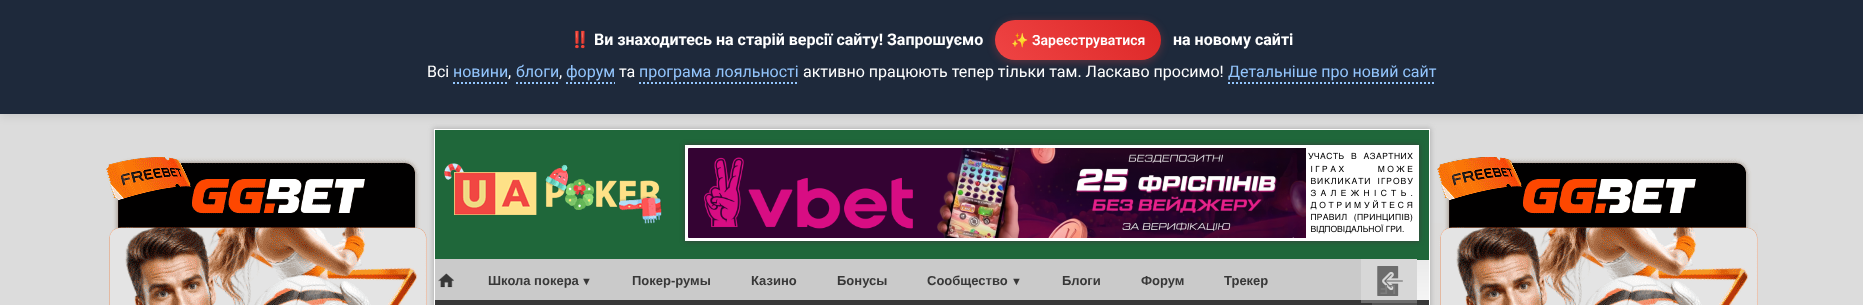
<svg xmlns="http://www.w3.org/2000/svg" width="1863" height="305">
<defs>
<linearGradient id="g1" gradientUnits="userSpaceOnUse" x1="1027" y1="92" x2="1130" y2="-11"><stop offset="0" stop-color="#ef4444"/><stop offset="1" stop-color="#dc2626"/></linearGradient>
</defs>
<rect width="100%" height="100%" fill="#dcdcdc"/>
<image x="106" y="157" width="1652" height="148" href="media/1.png"/>
<rect x="433" y="128" width="998" height="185" fill="#b3b3b3" filter="blur(2.5px)"/>
<image x="1417" y="260" width="12" height="40" href="media/2.png"/>
<rect x="434.5" y="129.5" width="995" height="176" fill="none" stroke="#fff"/>
<rect x="435" y="130" width="994" height="130" fill="#1f673a"/>
<rect y="2" width="1863" height="114" fill="#0000001a" filter="blur(5px)"/>
<rect width="1863" height="114" fill="#1e293b"/>
<text x="570" y="45" style="font-family:Noto Color Emoji;font-size:16px;font-weight:bold;fill:#fff">‼️</text>
<text x="594" y="45" style="font-family:Roboto;font-size:16px;font-weight:bold;fill:#fff">Ви знаходитесь на старій версії сайту! Запрошуємо</text>
<rect x="995" y="22" width="166" height="40" rx="20" fill="#ef44444d" filter="blur(4px)"/>
<rect x="995" y="20" width="166" height="40" rx="20" fill="url(#g1)"/>
<text x="1011" y="45" style="font-family:Noto Color Emoji;font-size:14px;font-weight:bold;fill:#fff">✨</text>
<text x="1032" y="45" style="font-family:Roboto;font-size:14px;font-weight:600;fill:#fff">Зареєструватися</text>
<text x="1173" y="45" style="font-family:Roboto;font-size:16px;font-weight:bold;fill:#fff">на новому сайті</text>
<text x="427" y="77" style="font-family:Roboto;font-size:16px;fill:#fff">Всі</text>
<text x="453" y="77" style="font-family:Roboto;font-size:16px;fill:#93c5fd">новини</text>
<path d="M453 83h55" fill="none" stroke="#93c5fd" stroke-width="2" stroke-dasharray="2 2"/>
<text x="508" y="77" style="font-family:Roboto;font-size:16px;fill:#fff">,</text>
<text x="516" y="77" style="font-family:Roboto;font-size:16px;fill:#93c5fd">блоги</text>
<path d="M516 83h43" fill="none" stroke="#93c5fd" stroke-width="2" stroke-dasharray="2 2"/>
<text x="559" y="77" style="font-family:Roboto;font-size:16px;fill:#fff">,</text>
<text x="566" y="77" style="font-family:Roboto;font-size:16px;fill:#93c5fd">форум</text>
<path d="M566 83h49" fill="none" stroke="#93c5fd" stroke-width="2" stroke-dasharray="2 2"/>
<text x="619" y="77" style="font-family:Roboto;font-size:16px;fill:#fff">та</text>
<text x="639" y="77" style="font-family:Roboto;font-size:16px;fill:#93c5fd">програма лояльності</text>
<path d="M639 83h160" fill="none" stroke="#93c5fd" stroke-width="2" stroke-dasharray="2 2"/>
<text x="803" y="77" style="font-family:Roboto;font-size:16px;fill:#fff">активно працюють тепер тільки там. Ласкаво просимо!</text>
<text x="1228" y="77" style="font-family:Roboto;font-size:16px;fill:#93c5fd">Детальніше про новий сайт</text>
<path d="M1228 83h208" fill="none" stroke="#93c5fd" stroke-width="2" stroke-dasharray="2 2"/>
<image x="444" y="163" width="218" height="61" href="media/3.png"/>
<rect x="685" y="145" width="734" height="96" fill="#3c3b3b" filter="blur(2.5px)"/>
<rect x="685" y="145" width="734" height="96" fill="#fff"/>
<image x="688" y="148" width="725" height="90" href="media/4.png"/>
<rect x="435" y="259" width="982" height="41" fill="#cacaca"/>
<image x="438" y="273" width="16" height="15" href="media/5.png"/>
<text x="488" y="285" style="font-family:Liberation Sans;font-size:13px;font-weight:bold;fill:#383838">Школа покера</text>
<text x="581" y="285" style="font-family:Liberation Sans;font-size:11px;font-weight:bold;fill:#383838">▼</text>
<text x="632" y="285" style="font-family:Liberation Sans;font-size:13px;font-weight:bold;fill:#383838">Покер-румы</text>
<text x="751" y="285" style="font-family:Liberation Sans;font-size:13px;font-weight:bold;fill:#383838">Казино</text>
<text x="837" y="285" style="font-family:Liberation Sans;font-size:13px;font-weight:bold;fill:#383838">Бонусы</text>
<text x="927" y="285" style="font-family:Liberation Sans;font-size:13px;font-weight:bold;fill:#383838">Сообщество</text>
<text x="1011" y="285" style="font-family:Liberation Sans;font-size:11px;font-weight:bold;fill:#383838">▼</text>
<text x="1062" y="285" style="font-family:Liberation Sans;font-size:13px;font-weight:bold;fill:#383838">Блоги</text>
<text x="1141" y="285" style="font-family:Liberation Sans;font-size:13px;font-weight:bold;fill:#383838">Форум</text>
<text x="1224" y="285" style="font-family:Liberation Sans;font-size:13px;font-weight:bold;fill:#383838">Трекер</text>
<rect x="435" y="300" width="994" height="5" fill="#383838"/>
<rect x="1361" y="259" width="56" height="44" fill="#ffffff42"/>
<image x="1377" y="266" width="26" height="30" href="media/6.png"/>
<text x="1396" y="285" transform="rotate(180 1396 285)" style="font-family:Liberation Sans;font-size:13px;font-weight:bold;fill:#7d7d7d">LF</text>
<rect x="1372" y="303" width="45" height="2" fill="#545454"/>
</svg>
